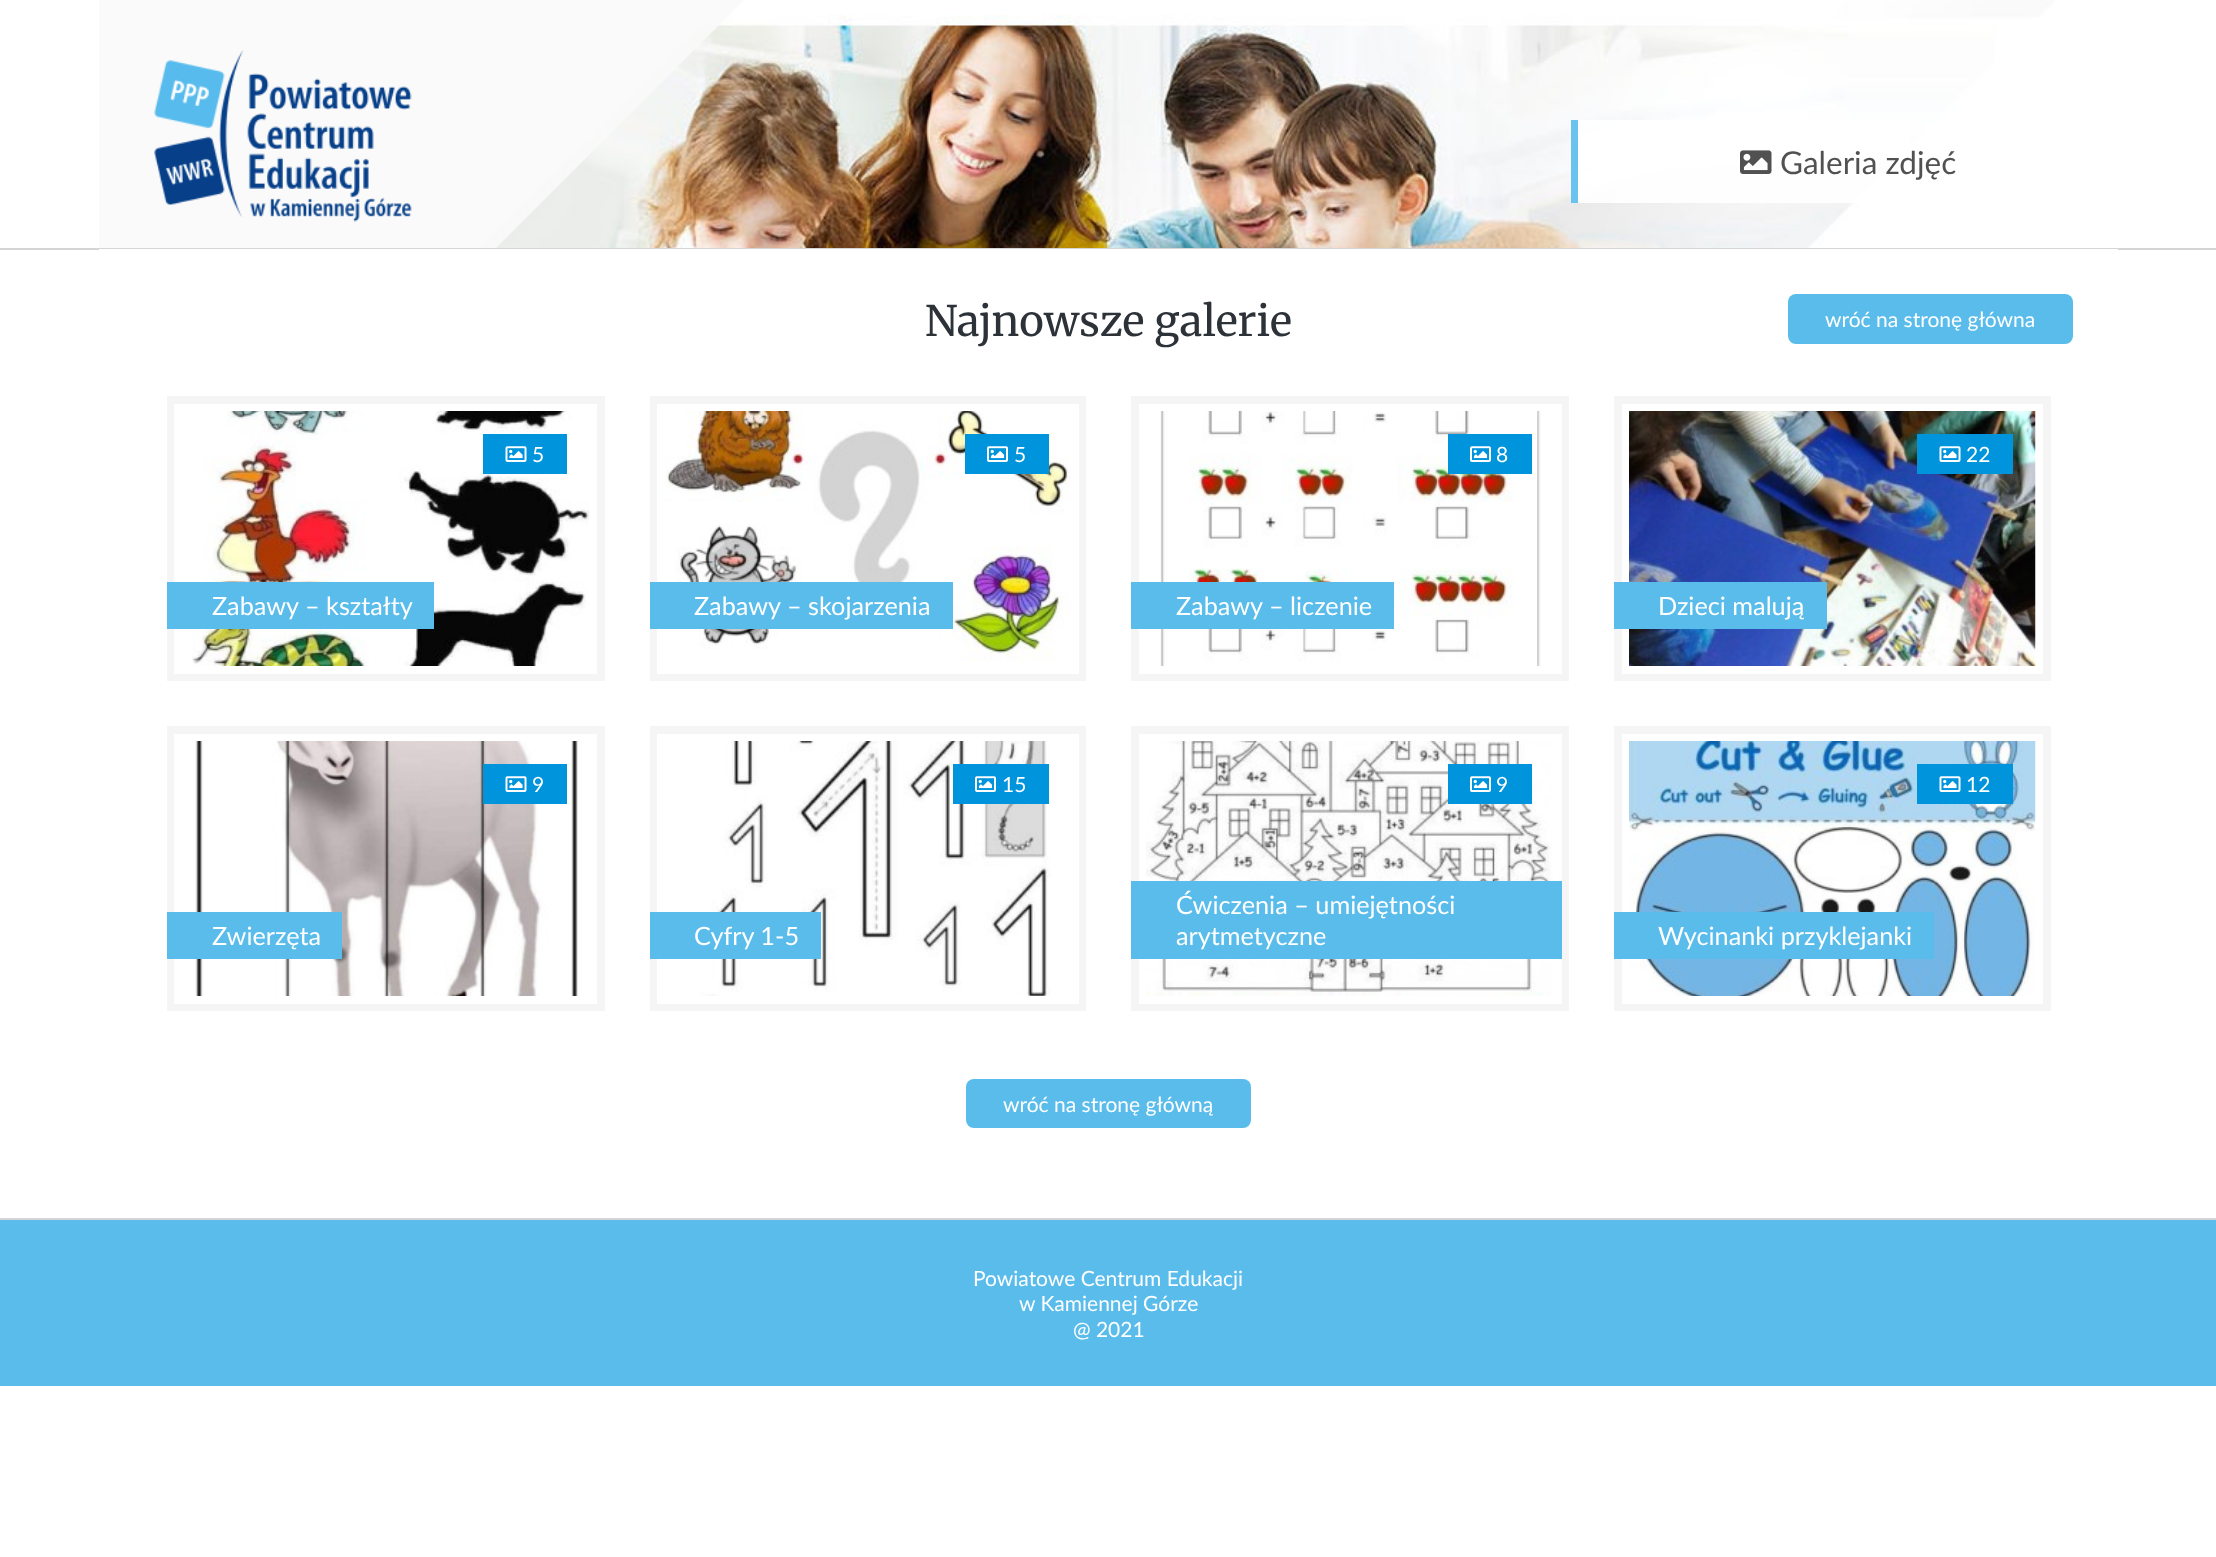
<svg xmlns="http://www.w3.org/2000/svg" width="2216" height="1557">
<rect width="100%" height="100%" fill="#fff"/>
<image x="216" y="0" width="1838" height="248" href="media/1.png"/>
<path d="M99 0h645l-645 645z" fill="#fafafae6"/>
<image x="154" y="50" width="258" height="172" href="media/2.png"/>
<rect x="1578" y="120" width="332" height="83" fill="#ffffffe6"/>
<rect x="1571" y="120" width="7" height="83" fill="#6ac3ee"/>
<image x="1740" y="150" width="32" height="24" href="media/3.png"/>
<text x="1780" y="174" style="font-family:Lato;font-size:31.5px;fill:#515151">Galeria zdjęć</text>
<rect y="248" width="2216" height="2" fill="#d5d5d5"/>
<rect y="1218" width="2216" height="2" fill="#d5d5d5"/>
<rect x="99" y="249" width="2019" height="395" fill="#fff"/>
<text x="925" y="336" style="font-family:Merriweather;font-size:42px;fill:#2c3238">Najnowsze galerie</text>
<rect x="1788" y="294" width="285" height="50" rx="8" fill="#59bceb"/>
<text x="1825" y="327" style="font-family:Lato;font-size:21px;fill:#fff">wróć na stronę główna</text>
<rect x="171" y="400" width="430" height="277" fill="none" stroke="#f5f5f5" stroke-width="8"/>
<rect x="178" y="408" width="415" height="262" fill="none" stroke="#fff" stroke-width="8"/>
<image x="192" y="411" width="398" height="255" href="media/4.png"/>
<rect x="483" y="434" width="84" height="40" fill="#0094dc"/>
<image x="505" y="446" width="22" height="16" href="media/5.png"/>
<text x="532" y="462" style="font-family:Lato;font-size:21px;fill:#fff">5</text>
<rect x="167" y="582" width="267" height="47" fill="#59bceb"/>
<text x="212" y="615" style="font-family:Lato;font-size:25.25px;fill:#fff">Zabawy – kształty</text>
<rect x="654" y="400" width="428" height="277" fill="none" stroke="#f5f5f5" stroke-width="8"/>
<rect x="661" y="408" width="414" height="262" fill="none" stroke="#fff" stroke-width="8"/>
<image x="665" y="411" width="406" height="250" href="media/6.png"/>
<rect x="965" y="434" width="84" height="40" fill="#0094dc"/>
<image x="987" y="446" width="21" height="16" href="media/7.png"/>
<text x="1014" y="462" style="font-family:Lato;font-size:21px;fill:#fff">5</text>
<rect x="650" y="582" width="303" height="47" fill="#59bceb"/>
<text x="694" y="615" style="font-family:Lato;font-size:25.25px;fill:#fff">Zabawy – skojarzenia</text>
<rect x="1135" y="400" width="430" height="277" fill="none" stroke="#f5f5f5" stroke-width="8"/>
<rect x="1143" y="408" width="415" height="262" fill="none" stroke="#fff" stroke-width="8"/>
<image x="1160" y="411" width="381" height="255" href="media/8.png"/>
<rect x="1448" y="434" width="84" height="40" fill="#0094dc"/>
<image x="1470" y="446" width="21" height="16" href="media/7.png"/>
<text x="1496" y="462" style="font-family:Lato;font-size:21px;fill:#fff">8</text>
<rect x="1131" y="582" width="263" height="47" fill="#59bceb"/>
<text x="1176" y="615" style="font-family:Lato;font-size:25.25px;fill:#fff">Zabawy – liczenie</text>
<rect x="1618" y="400" width="429" height="277" fill="none" stroke="#f5f5f5" stroke-width="8"/>
<rect x="1626" y="408" width="413" height="262" fill="none" stroke="#fff" stroke-width="8"/>
<image x="1629" y="411" width="407" height="255" href="media/9.png"/>
<rect x="1917" y="434" width="96" height="40" fill="#0094dc"/>
<image x="1939" y="446" width="22" height="16" href="media/5.png"/>
<text x="1966" y="462" style="font-family:Lato;font-size:21px;fill:#fff">22</text>
<rect x="1614" y="582" width="213" height="47" fill="#59bceb"/>
<text x="1658" y="615" style="font-family:Lato;font-size:25.25px;fill:#fff">Dzieci malują</text>
<rect x="171" y="730" width="430" height="277" fill="none" stroke="#f5f5f5" stroke-width="8"/>
<rect x="178" y="738" width="415" height="262" fill="none" stroke="#fff" stroke-width="8"/>
<image x="195" y="741" width="383" height="255" href="media/10.png"/>
<rect x="483" y="764" width="84" height="40" fill="#0094dc"/>
<image x="505" y="776" width="22" height="16" href="media/5.png"/>
<text x="532" y="792" style="font-family:Lato;font-size:21px;fill:#fff">9</text>
<rect x="167" y="912" width="175" height="47" fill="#59bceb"/>
<text x="212" y="945" style="font-family:Lato;font-size:25.25px;fill:#fff">Zwierzęta</text>
<rect x="654" y="730" width="428" height="277" fill="none" stroke="#f5f5f5" stroke-width="8"/>
<rect x="661" y="738" width="414" height="262" fill="none" stroke="#fff" stroke-width="8"/>
<image x="696" y="741" width="355" height="255" href="media/11.png"/>
<rect x="953" y="764" width="96" height="40" fill="#0094dc"/>
<image x="975" y="776" width="21" height="16" href="media/7.png"/>
<text x="1002" y="792" style="font-family:Lato;font-size:21px;fill:#fff">15</text>
<rect x="650" y="912" width="171" height="47" fill="#59bceb"/>
<text x="694" y="945" style="font-family:Lato;font-size:25.25px;fill:#fff">Cyfry 1-5</text>
<rect x="1135" y="730" width="430" height="277" fill="none" stroke="#f5f5f5" stroke-width="8"/>
<rect x="1143" y="738" width="415" height="262" fill="none" stroke="#fff" stroke-width="8"/>
<image x="1146" y="741" width="407" height="255" href="media/12.png"/>
<rect x="1448" y="764" width="84" height="40" fill="#0094dc"/>
<image x="1470" y="776" width="21" height="16" href="media/7.png"/>
<text x="1496" y="792" style="font-family:Lato;font-size:21px;fill:#fff">9</text>
<rect x="1131" y="881" width="431" height="78" fill="#59bceb"/>
<text x="1176" y="914" style="font-family:Lato;font-size:25.25px;fill:#fff">Ćwiczenia – umiejętności</text>
<text x="1176" y="945" style="font-family:Lato;font-size:25.25px;fill:#fff">arytmetyczne</text>
<rect x="1618" y="730" width="429" height="277" fill="none" stroke="#f5f5f5" stroke-width="8"/>
<rect x="1626" y="738" width="413" height="262" fill="none" stroke="#fff" stroke-width="8"/>
<image x="1629" y="741" width="407" height="255" href="media/13.png"/>
<rect x="1917" y="764" width="96" height="40" fill="#0094dc"/>
<image x="1939" y="776" width="22" height="16" href="media/5.png"/>
<text x="1966" y="792" style="font-family:Lato;font-size:21px;fill:#fff">12</text>
<rect x="1614" y="912" width="320" height="47" fill="#59bceb"/>
<text x="1658" y="945" style="font-family:Lato;font-size:25.25px;fill:#fff">Wycinanki przyklejanki</text>
<rect x="966" y="1079" width="285" height="49" rx="8" fill="#59bceb"/>
<text x="1003" y="1112" style="font-family:Lato;font-size:21px;fill:#fff">wróć na stronę główną</text>
<rect y="1220" width="2216" height="166" fill="#59bceb"/>
<text x="973" y="1286" style="font-family:Lato;font-size:21px;fill:#fff">Powiatowe Centrum Edukacji</text>
<text x="1019" y="1311" style="font-family:Lato;font-size:21px;fill:#fff">w Kamiennej Górze</text>
<text x="1073" y="1337" style="font-family:Lato;font-size:21px;fill:#fff">@ 2021</text>
</svg>
